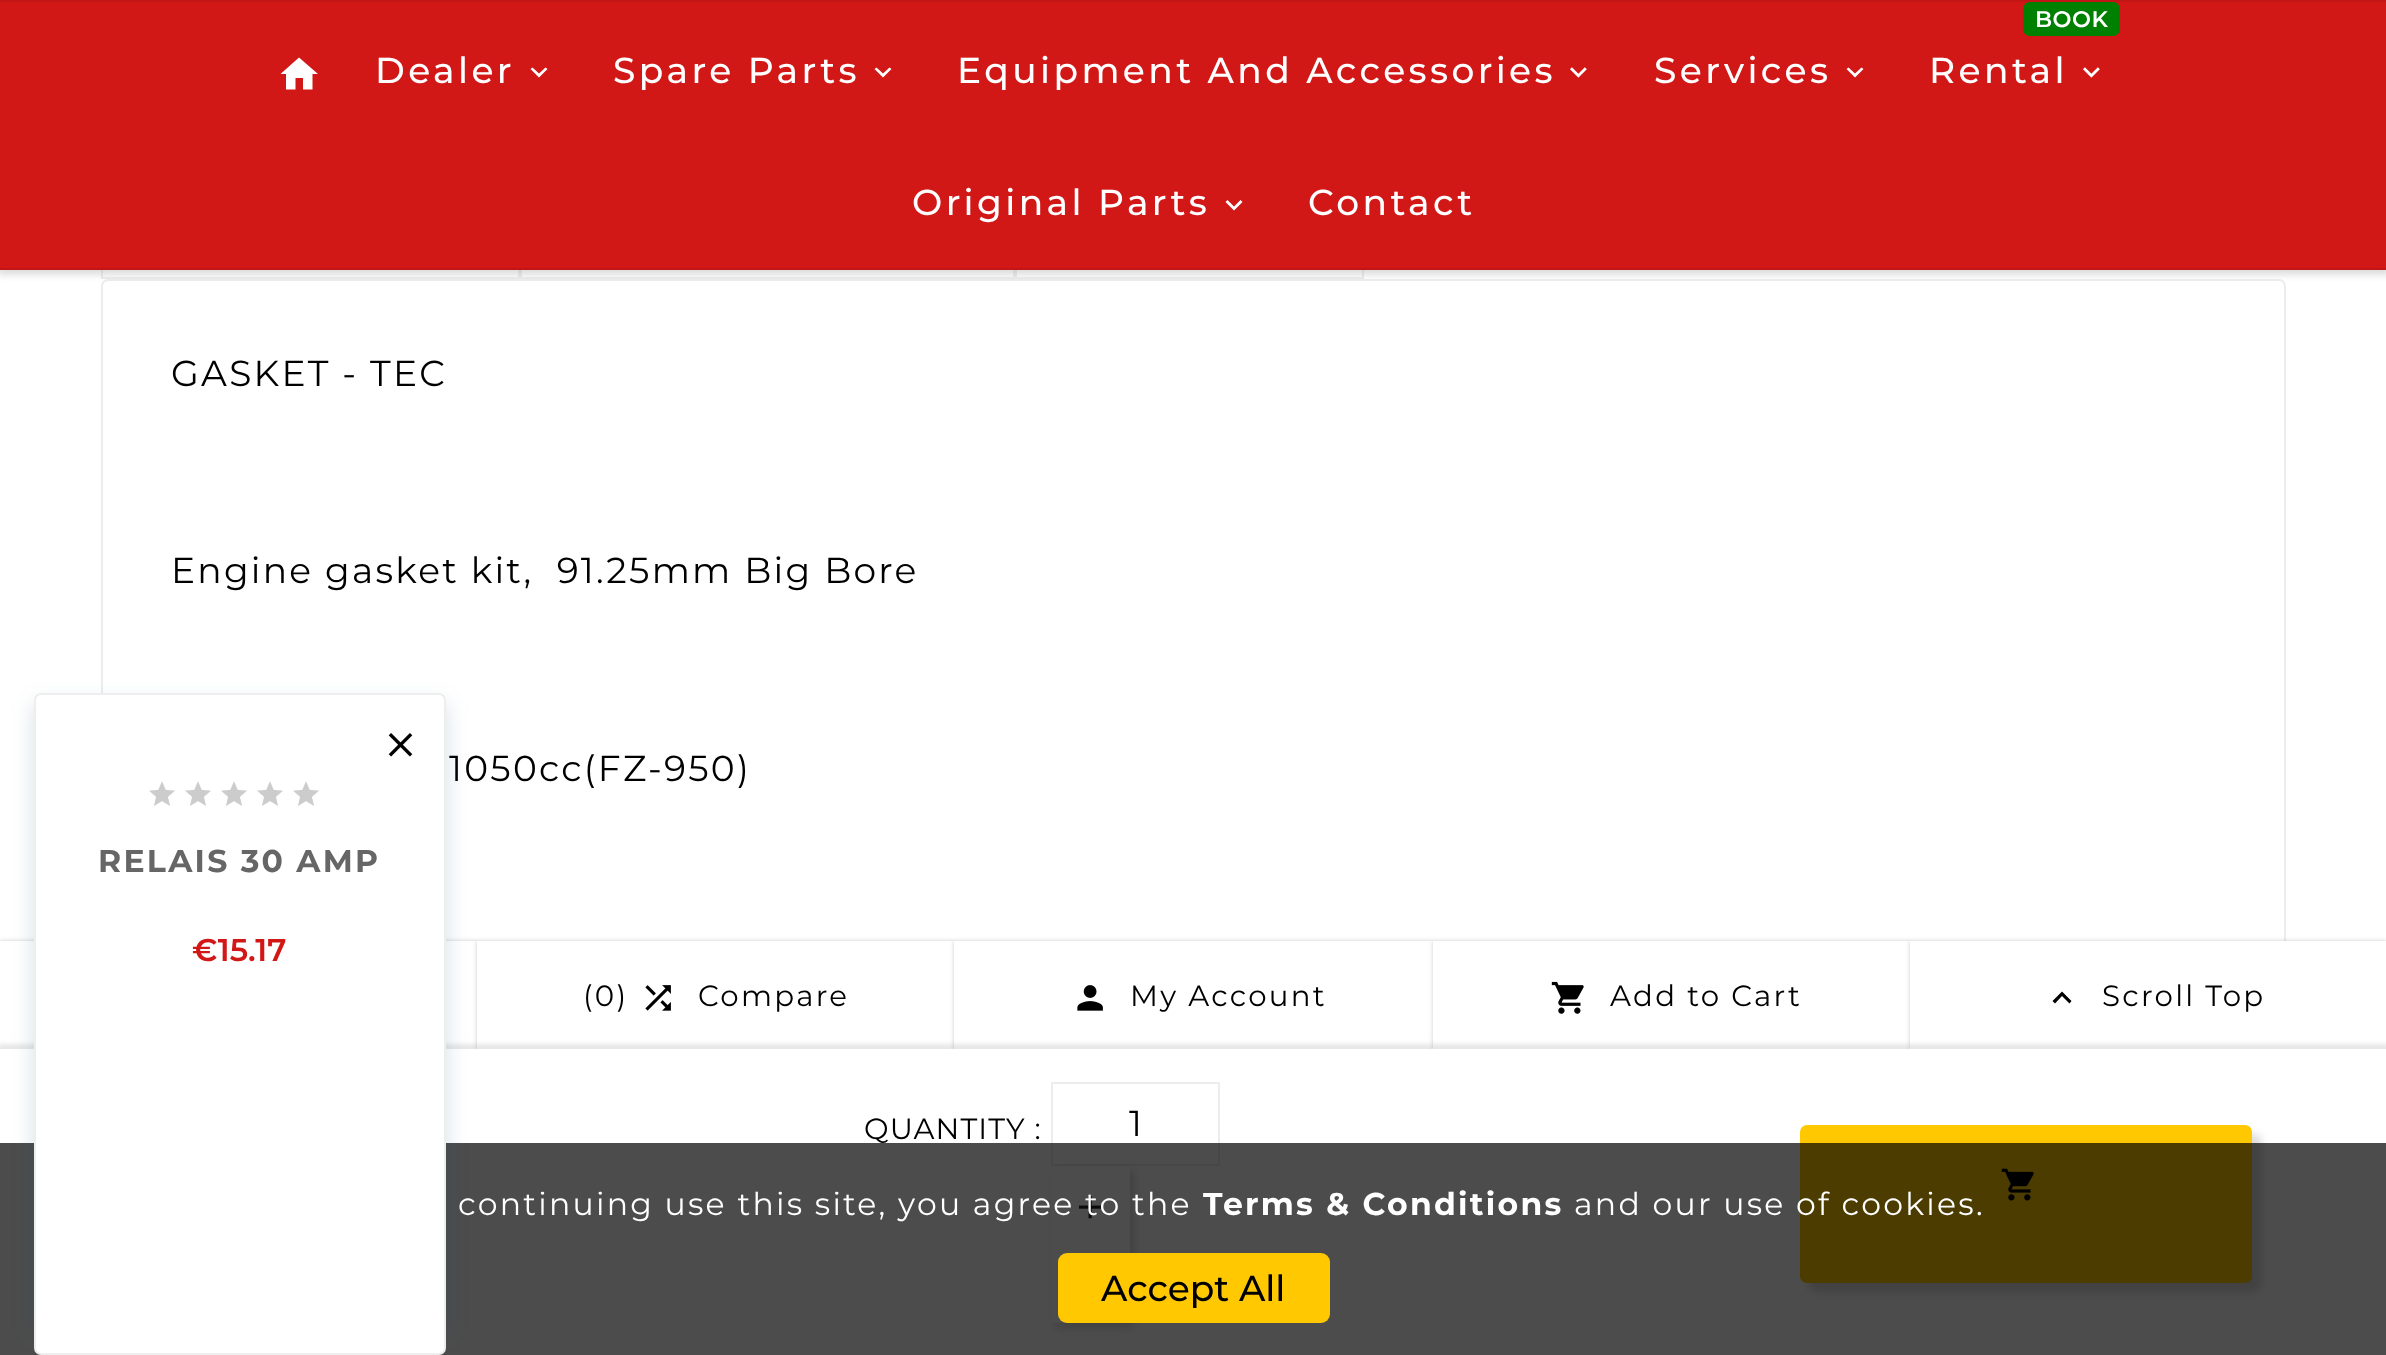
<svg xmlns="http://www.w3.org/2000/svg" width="2386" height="1355">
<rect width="100%" height="100%" fill="#fff"/>
<rect x="102" y="143" width="417" height="135" fill="none" stroke="#ededed" stroke-width="2"/>
<rect x="521" y="143" width="493" height="135" fill="none" stroke="#ededed" stroke-width="2"/>
<rect x="1016" y="143" width="347" height="135" fill="none" stroke="#ededed" stroke-width="2"/>
<rect x="102" y="280" width="2183" height="729" rx="6" fill="none" stroke="#ededed" stroke-width="2"/>
<rect x="-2" width="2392" height="275" fill="#80808045" filter="blur(3.5px)"/>
<rect y="2" width="2386" height="266" fill="#d21717"/>
<rect width="2386" height="2" fill="#c31515"/>
<rect y="268" width="2386" height="2" fill="#c31515"/>
<path d="M295.5 89.5h-9.5v-15.5h-5.5l18.5-16.5l19 16.5h-5.5v15.5h-9.5v-11.5h-7.5z" fill="#fff"/>
<text x="375" y="83" style="font-family:Montserrat;font-size:36px;font-weight:500;letter-spacing:3.4px;fill:#fff">Dealer</text>
<path d="M532.5 67.5l6.5 6l6.5-6l2 1.5l-8.5 8.5l-8.5-8.5z" fill="#fff"/>
<text x="613" y="83" style="font-family:Montserrat;font-size:36px;font-weight:500;letter-spacing:3.4px;fill:#fff">Spare Parts</text>
<path d="M876.5 67.5l6.5 6l6.5-6l2 1.5l-8.5 8.5l-8.5-8.5z" fill="#fff"/>
<text x="957" y="83" style="font-family:Montserrat;font-size:36px;font-weight:500;letter-spacing:3.4px;fill:#fff">Equipment And Accessories</text>
<image x="1570" y="67" width="17" height="11" href="media/1.png"/>
<text x="1654" y="83" style="font-family:Montserrat;font-size:36px;font-weight:500;letter-spacing:3.4px;fill:#fff">Services</text>
<path d="M1848.5 67.5l6.5 6l6.5-6l2 1.5l-8.5 8.5l-8.5-8.5z" fill="#fff"/>
<rect x="2023" y="2" width="97" height="34" rx="7" fill="#008000"/>
<text x="2035" y="27" style="font-family:Montserrat;font-size:22.5px;font-weight:600;letter-spacing:0.5px;fill:#fff">BOOK</text>
<text x="1929" y="83" style="font-family:Montserrat;font-size:36px;font-weight:500;letter-spacing:3.4px;fill:#fff">Rental</text>
<image x="2083" y="67" width="17" height="11" href="media/1.png"/>
<text x="912" y="215" style="font-family:Montserrat;font-size:36px;font-weight:500;letter-spacing:3.4px;fill:#fff">Original Parts</text>
<path d="M1227.5 200l6.5 6.5l6.5-6.5l2 2l-8.5 8.5l-8.5-8.5z" fill="#fff"/>
<text x="1308" y="215" style="font-family:Montserrat;font-size:36px;font-weight:500;letter-spacing:3.4px;fill:#fff">Contact</text>
<text x="171" y="386" style="font-family:Montserrat;font-size:36px;letter-spacing:2.25px;fill:#000">GASKET - TEC</text>
<text x="171" y="583" style="font-family:Montserrat;font-size:36px;letter-spacing:2.25px;fill:#000" xml:space="preserve">Engine gasket kit,  91.25mm Big Bore</text>
<text x="449" y="781" style="font-family:Montserrat;font-size:36px;letter-spacing:2.25px;fill:#000">1050cc(FZ-950)</text>
<rect y="941" width="477" height="108" fill="#00000033" filter="blur(2px)"/>
<rect y="941" width="477" height="108" fill="#fff"/>
<rect x="477" y="941" width="477" height="108" fill="#00000033" filter="blur(2px)"/>
<rect x="477" y="941" width="477" height="108" fill="#fff"/>
<rect x="954" y="941" width="479" height="108" fill="#00000033" filter="blur(2px)"/>
<rect x="954" y="941" width="479" height="108" fill="#fff"/>
<rect x="1433" y="941" width="477" height="108" fill="#00000033" filter="blur(2px)"/>
<rect x="1433" y="941" width="477" height="108" fill="#fff"/>
<rect x="1910" y="941" width="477" height="108" fill="#00000033" filter="blur(2px)"/>
<rect x="1910" y="941" width="476" height="108" fill="#fff"/>
<rect x="-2" y="1044" width="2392" height="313" fill="#7a7a7a2e" filter="blur(2px)"/>
<rect y="1049" width="2386" height="306" fill="#fff"/>
<text x="864" y="1139" style="font-family:Montserrat;font-size:29.25px;letter-spacing:1.1px;fill:#000">QUANTITY :</text>
<rect x="1052" y="1083" width="167" height="82" fill="none" stroke="#ededed" stroke-width="2"/>
<text x="1129" y="1136" style="font-family:Montserrat;font-size:36px;fill:#000">1</text>
<rect x="1055" y="1170" width="79" height="79" fill="#00000024" filter="blur(4.5px)"/>
<rect x="1051" y="1166" width="79" height="78" fill="#fff"/>
<image x="1079" y="1196" width="23" height="23" href="media/2.png"/>
<rect x="1055" y="1249" width="79" height="79" fill="#00000024" filter="blur(4.5px)"/>
<rect x="1051" y="1244" width="79" height="79" fill="#fff"/>
<rect x="1809" y="1134" width="452" height="158" rx="7" fill="#00000024" filter="blur(4.5px)"/>
<rect x="1800" y="1125" width="452" height="158" rx="7" fill="#ffc800"/>
<image x="2001" y="1168" width="33" height="33" href="media/3.png"/>
<text x="583" y="1006" style="font-family:Montserrat;font-size:29.25px;letter-spacing:2.25px;fill:#000">(0)</text>
<image x="645" y="985" width="26" height="26" href="media/4.png"/>
<text x="698" y="1006" style="font-family:Montserrat;font-size:29.25px;letter-spacing:2.25px;fill:#000">Compare</text>
<image x="1077" y="985" width="26" height="26" href="media/5.png"/>
<text x="1130" y="1006" style="font-family:Montserrat;font-size:29.25px;letter-spacing:2.25px;fill:#000">My Account</text>
<image x="1551" y="981" width="33" height="33" href="media/6.png"/>
<text x="1610" y="1006" style="font-family:Montserrat;font-size:29.25px;letter-spacing:2.25px;fill:#000">Add to Cart</text>
<path d="M2055 1003.5l-2.5-2.5l9.5-9.5l9.5 9.5l-2 2.5l-7.5-7.5z" fill="#000"/>
<text x="2102" y="1006" style="font-family:Montserrat;font-size:29.25px;letter-spacing:2.25px;fill:#000">Scroll Top</text>
<rect y="1143" width="2386" height="212" fill="#000000b3"/>
<rect x="34" y="704" width="412" height="630" fill="#1754742e" filter="blur(11px)"/>
<rect x="35" y="694" width="410" height="660" rx="6" fill="#fff" stroke="#eee" stroke-width="2"/>
<image x="388" y="733" width="25" height="24" href="media/7.png"/>
<image x="149" y="781" width="26" height="25" href="media/8.png"/>
<image x="185" y="781" width="26" height="25" href="media/8.png"/>
<image x="221" y="781" width="26" height="25" href="media/8.png"/>
<image x="257" y="781" width="26" height="25" href="media/8.png"/>
<image x="293" y="781" width="26" height="25" href="media/8.png"/>
<text x="98" y="872" style="font-family:Montserrat;font-size:31.5px;font-weight:bold;letter-spacing:2.25px;fill:#666">RELAIS 30 AMP</text>
<text x="192" y="961" style="font-family:Montserrat;font-size:31.5px;font-weight:600;fill:#d21717">€15.17</text>
<text x="458" y="1215" style="font-family:Montserrat;font-size:31.5px;letter-spacing:2.25px;fill:#fff">continuing use this site, you agree to the</text>
<text x="1203" y="1215" style="font-family:Montserrat;font-size:31.5px;font-weight:bold;letter-spacing:2.25px;fill:#fff">Terms &amp; Conditions</text>
<text x="1574" y="1215" style="font-family:Montserrat;font-size:31.5px;letter-spacing:2.25px;fill:#fff">and our use of cookies.</text>
<rect x="1058" y="1253" width="272" height="70" rx="9" fill="#ffc800"/>
<text x="1101" y="1301" style="font-family:Montserrat;font-size:36px;font-weight:500;fill:#000">Accept All</text>
</svg>
